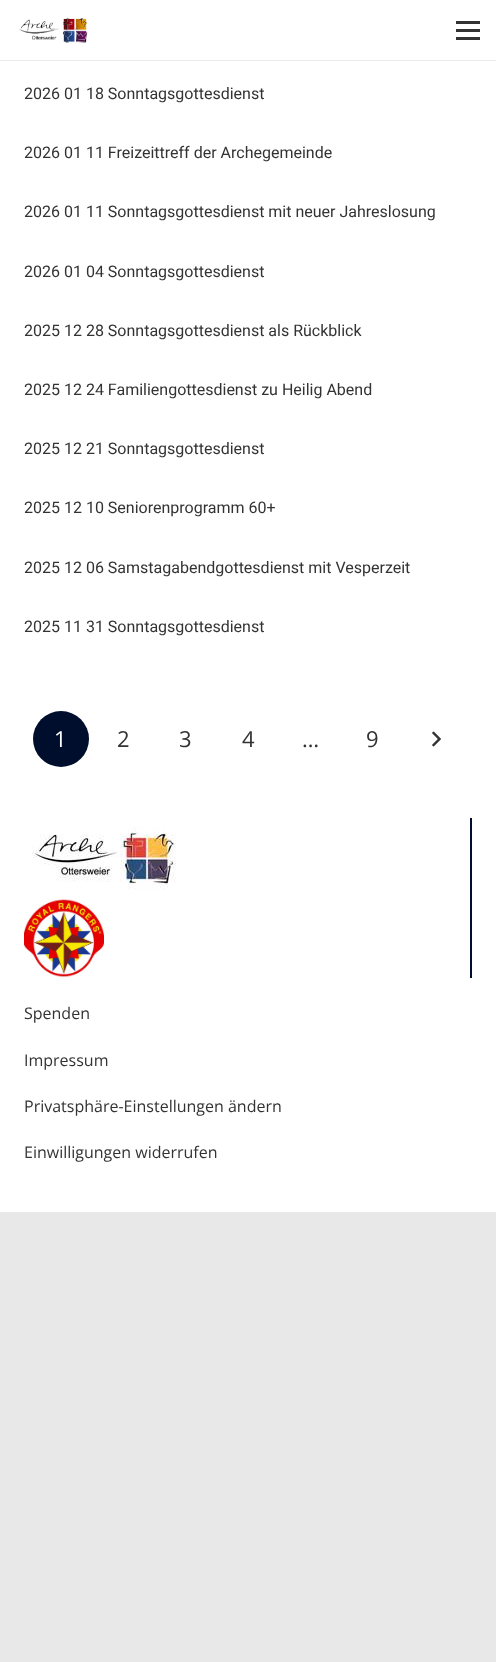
<svg xmlns="http://www.w3.org/2000/svg" width="496" height="1662">
<rect width="100%" height="100%" fill="#e8e8e8"/>
<rect width="496" height="1212" fill="#fff"/>
<rect y="60" width="496" height="1" fill="#ebebeb"/>
<image x="19" y="18" width="69" height="25" href="media/1.png"/>
<rect x="456" y="29" width="24" height="3" fill="#333"/>
<rect x="456" y="21" width="24" height="3" fill="#333"/>
<rect x="456" y="37" width="24" height="3" fill="#333"/>
<text x="24" y="99" style="font-family:Roboto;font-size:16px;fill:#333">2026 01 18 Sonntagsgottesdienst</text>
<text x="24" y="158" style="font-family:Roboto;font-size:16px;fill:#333">2026 01 11 Freizeittreff der Archegemeinde</text>
<text x="24" y="217" style="font-family:Roboto;font-size:16px;fill:#333">2026 01 11 Sonntagsgottesdienst mit neuer Jahreslosung</text>
<text x="24" y="277" style="font-family:Roboto;font-size:16px;fill:#333">2026 01 04 Sonntagsgottesdienst</text>
<text x="24" y="336" style="font-family:Roboto;font-size:16px;fill:#333">2025 12 28 Sonntagsgottesdienst als Rückblick</text>
<text x="24" y="395" style="font-family:Roboto;font-size:16px;fill:#333">2025 12 24 Familiengottesdienst zu Heilig Abend</text>
<text x="24" y="454" style="font-family:Roboto;font-size:16px;fill:#333">2025 12 21 Sonntagsgottesdienst</text>
<text x="24" y="513" style="font-family:Roboto;font-size:16px;fill:#333">2025 12 10 Seniorenprogramm 60+</text>
<text x="24" y="573" style="font-family:Roboto;font-size:16px;fill:#333">2025 12 06 Samstagabendgottesdienst mit Vesperzeit</text>
<text x="24" y="632" style="font-family:Roboto;font-size:16px;fill:#333">2025 11 31 Sonntagsgottesdienst</text>
<circle cx="61" cy="739" r="28" fill="#000e2e"/>
<text x="54" y="747" style="font-family:Open Sans;font-size:22px;fill:#fff">1</text>
<text x="117" y="747" style="font-family:Open Sans;font-size:22px;fill:#333">2</text>
<text x="179" y="747" style="font-family:Open Sans;font-size:22px;fill:#333">3</text>
<text x="242" y="747" style="font-family:Open Sans;font-size:22px;fill:#333">4</text>
<text x="302" y="747" style="font-family:Open Sans;font-size:22px;fill:#333">…</text>
<text x="366" y="747" style="font-family:Open Sans;font-size:22px;fill:#333">9</text>
<image x="432" y="731" width="9" height="16" href="media/2.png"/>
<rect x="470" y="818" width="2" height="160" fill="#000e2e"/>
<image x="32" y="826" width="144" height="64" href="media/3.png"/>
<image x="24" y="899" width="80" height="78" href="media/4.png"/>
<text x="24" y="1019" style="font-family:Open Sans;font-size:16px;fill:#333">Spenden</text>
<text x="24" y="1066" style="font-family:Open Sans;font-size:16px;fill:#333">Impressum</text>
<text x="24" y="1112" style="font-family:Open Sans;font-size:16px;fill:#333">Privatsphäre-Einstellungen ändern</text>
<text x="24" y="1158" style="font-family:Open Sans;font-size:16px;fill:#333">Einwilligungen widerrufen</text>
</svg>
